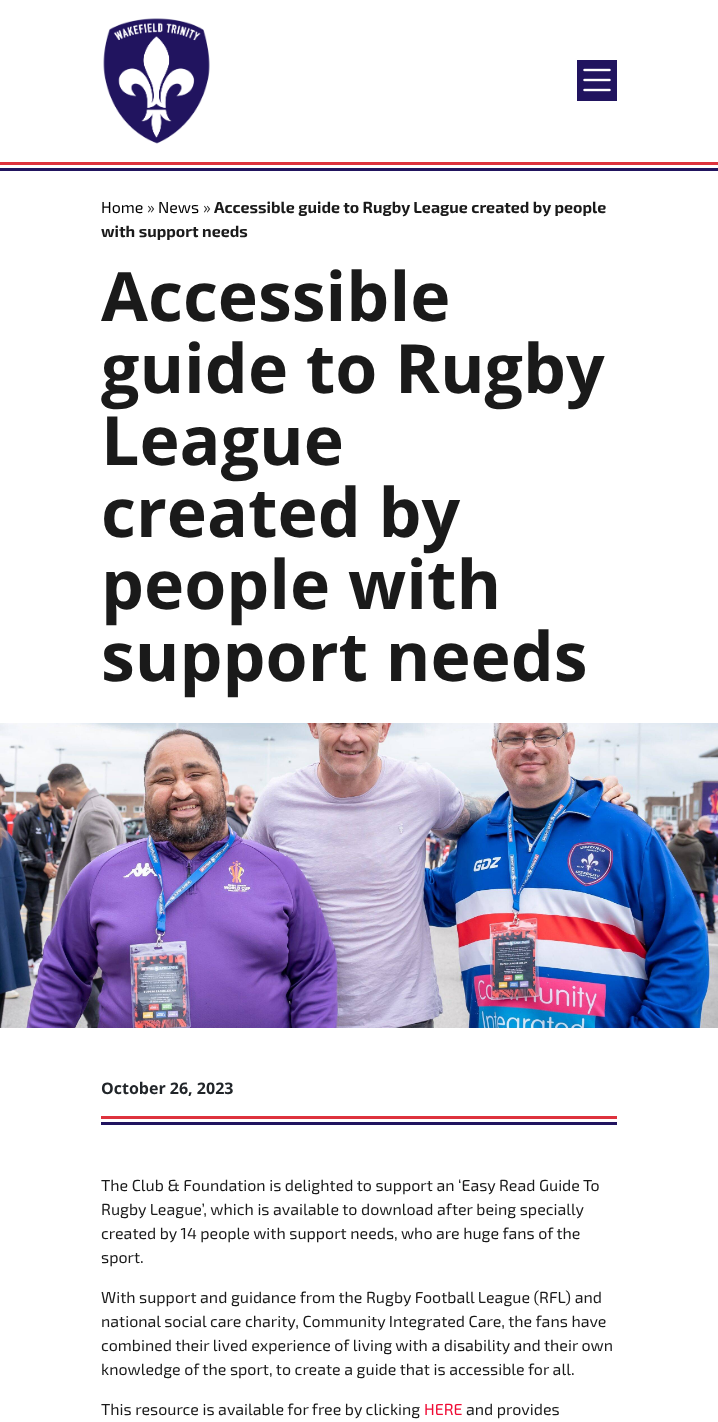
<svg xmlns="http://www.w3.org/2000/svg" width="718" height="1422">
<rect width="100%" height="100%" fill="#fff"/>
<rect y="162" width="718" height="3" fill="#de323d"/>
<image x="103" y="18" width="107" height="126" href="media/1.png"/>
<rect x="577" y="60" width="40" height="41" fill="#21145f"/>
<image x="583" y="68" width="28" height="24" href="media/2.png"/>
<rect y="168" width="718" height="3" fill="#21145f"/>
<text x="101" y="213" style="font-family:'Exo 2';font-size:16px;fill:#000">Home</text>
<text x="147" y="213" style="font-family:'Exo 2';font-size:16px;fill:#333">»</text>
<text x="158" y="213" style="font-family:'Exo 2';font-size:16px;fill:#000">News</text>
<text x="203" y="213" style="font-family:'Exo 2';font-size:16px;fill:#333">»</text>
<text x="214" y="213" style="font-family:'Exo 2';font-size:16px;font-weight:bold;fill:#1a1a1a">Accessible guide to Rugby League created by people</text>
<text x="101" y="237" style="font-family:'Exo 2';font-size:16px;font-weight:bold;fill:#1a1a1a">with support needs</text>
<text x="101" y="321" style="font-family:Open Sans;font-size:68px;font-weight:bold;fill:#1a1a1a">Accessible</text>
<text x="101" y="393" style="font-family:Open Sans;font-size:68px;font-weight:bold;fill:#1a1a1a">guide to Rugby</text>
<text x="101" y="465" style="font-family:Open Sans;font-size:68px;font-weight:bold;fill:#1a1a1a">League</text>
<text x="101" y="537" style="font-family:Open Sans;font-size:68px;font-weight:bold;fill:#1a1a1a">created by</text>
<text x="101" y="609" style="font-family:Open Sans;font-size:68px;font-weight:bold;fill:#1a1a1a">people with</text>
<text x="101" y="681" style="font-family:Open Sans;font-size:68px;font-weight:bold;fill:#1a1a1a">support needs</text>
<image x="0" y="723" width="718" height="305" href="media/3.png"/>
<text x="101" y="1094" style="font-family:Open Sans;font-size:16px;font-weight:bold;fill:#212529">October 26, 2023</text>
<rect x="101" y="1116" width="516" height="3" fill="#de323d"/>
<rect x="101" y="1122" width="516" height="3" fill="#21145f"/>
<text x="101" y="1191" style="font-family:'Exo 2';font-size:16px;fill:#1a1a1a">The Club &amp; Foundation is delighted to support an ‘Easy Read Guide To</text>
<text x="101" y="1215" style="font-family:'Exo 2';font-size:16px;fill:#1a1a1a">Rugby League’, which is available to download after being specially</text>
<text x="101" y="1239" style="font-family:'Exo 2';font-size:16px;fill:#1a1a1a">created by 14 people with support needs, who are huge fans of the</text>
<text x="101" y="1263" style="font-family:'Exo 2';font-size:16px;fill:#1a1a1a">sport.</text>
<text x="101" y="1303" style="font-family:'Exo 2';font-size:16px;fill:#1a1a1a">With support and guidance from the Rugby Football League (RFL) and</text>
<text x="101" y="1327" style="font-family:'Exo 2';font-size:16px;fill:#1a1a1a">national social care charity, Community Integrated Care, the fans have</text>
<text x="101" y="1351" style="font-family:'Exo 2';font-size:16px;fill:#1a1a1a">combined their lived experience of living with a disability and their own</text>
<text x="101" y="1375" style="font-family:'Exo 2';font-size:16px;fill:#1a1a1a">knowledge of the sport, to create a guide that is accessible for all.</text>
<text x="101" y="1415" style="font-family:'Exo 2';font-size:16px;fill:#1a1a1a">This resource is available for free by clicking</text>
<text x="424" y="1415" style="font-family:'Exo 2';font-size:16px;fill:#ef0b34">HERE</text>
<text x="466" y="1415" style="font-family:'Exo 2';font-size:16px;fill:#1a1a1a">and provides</text>
</svg>
